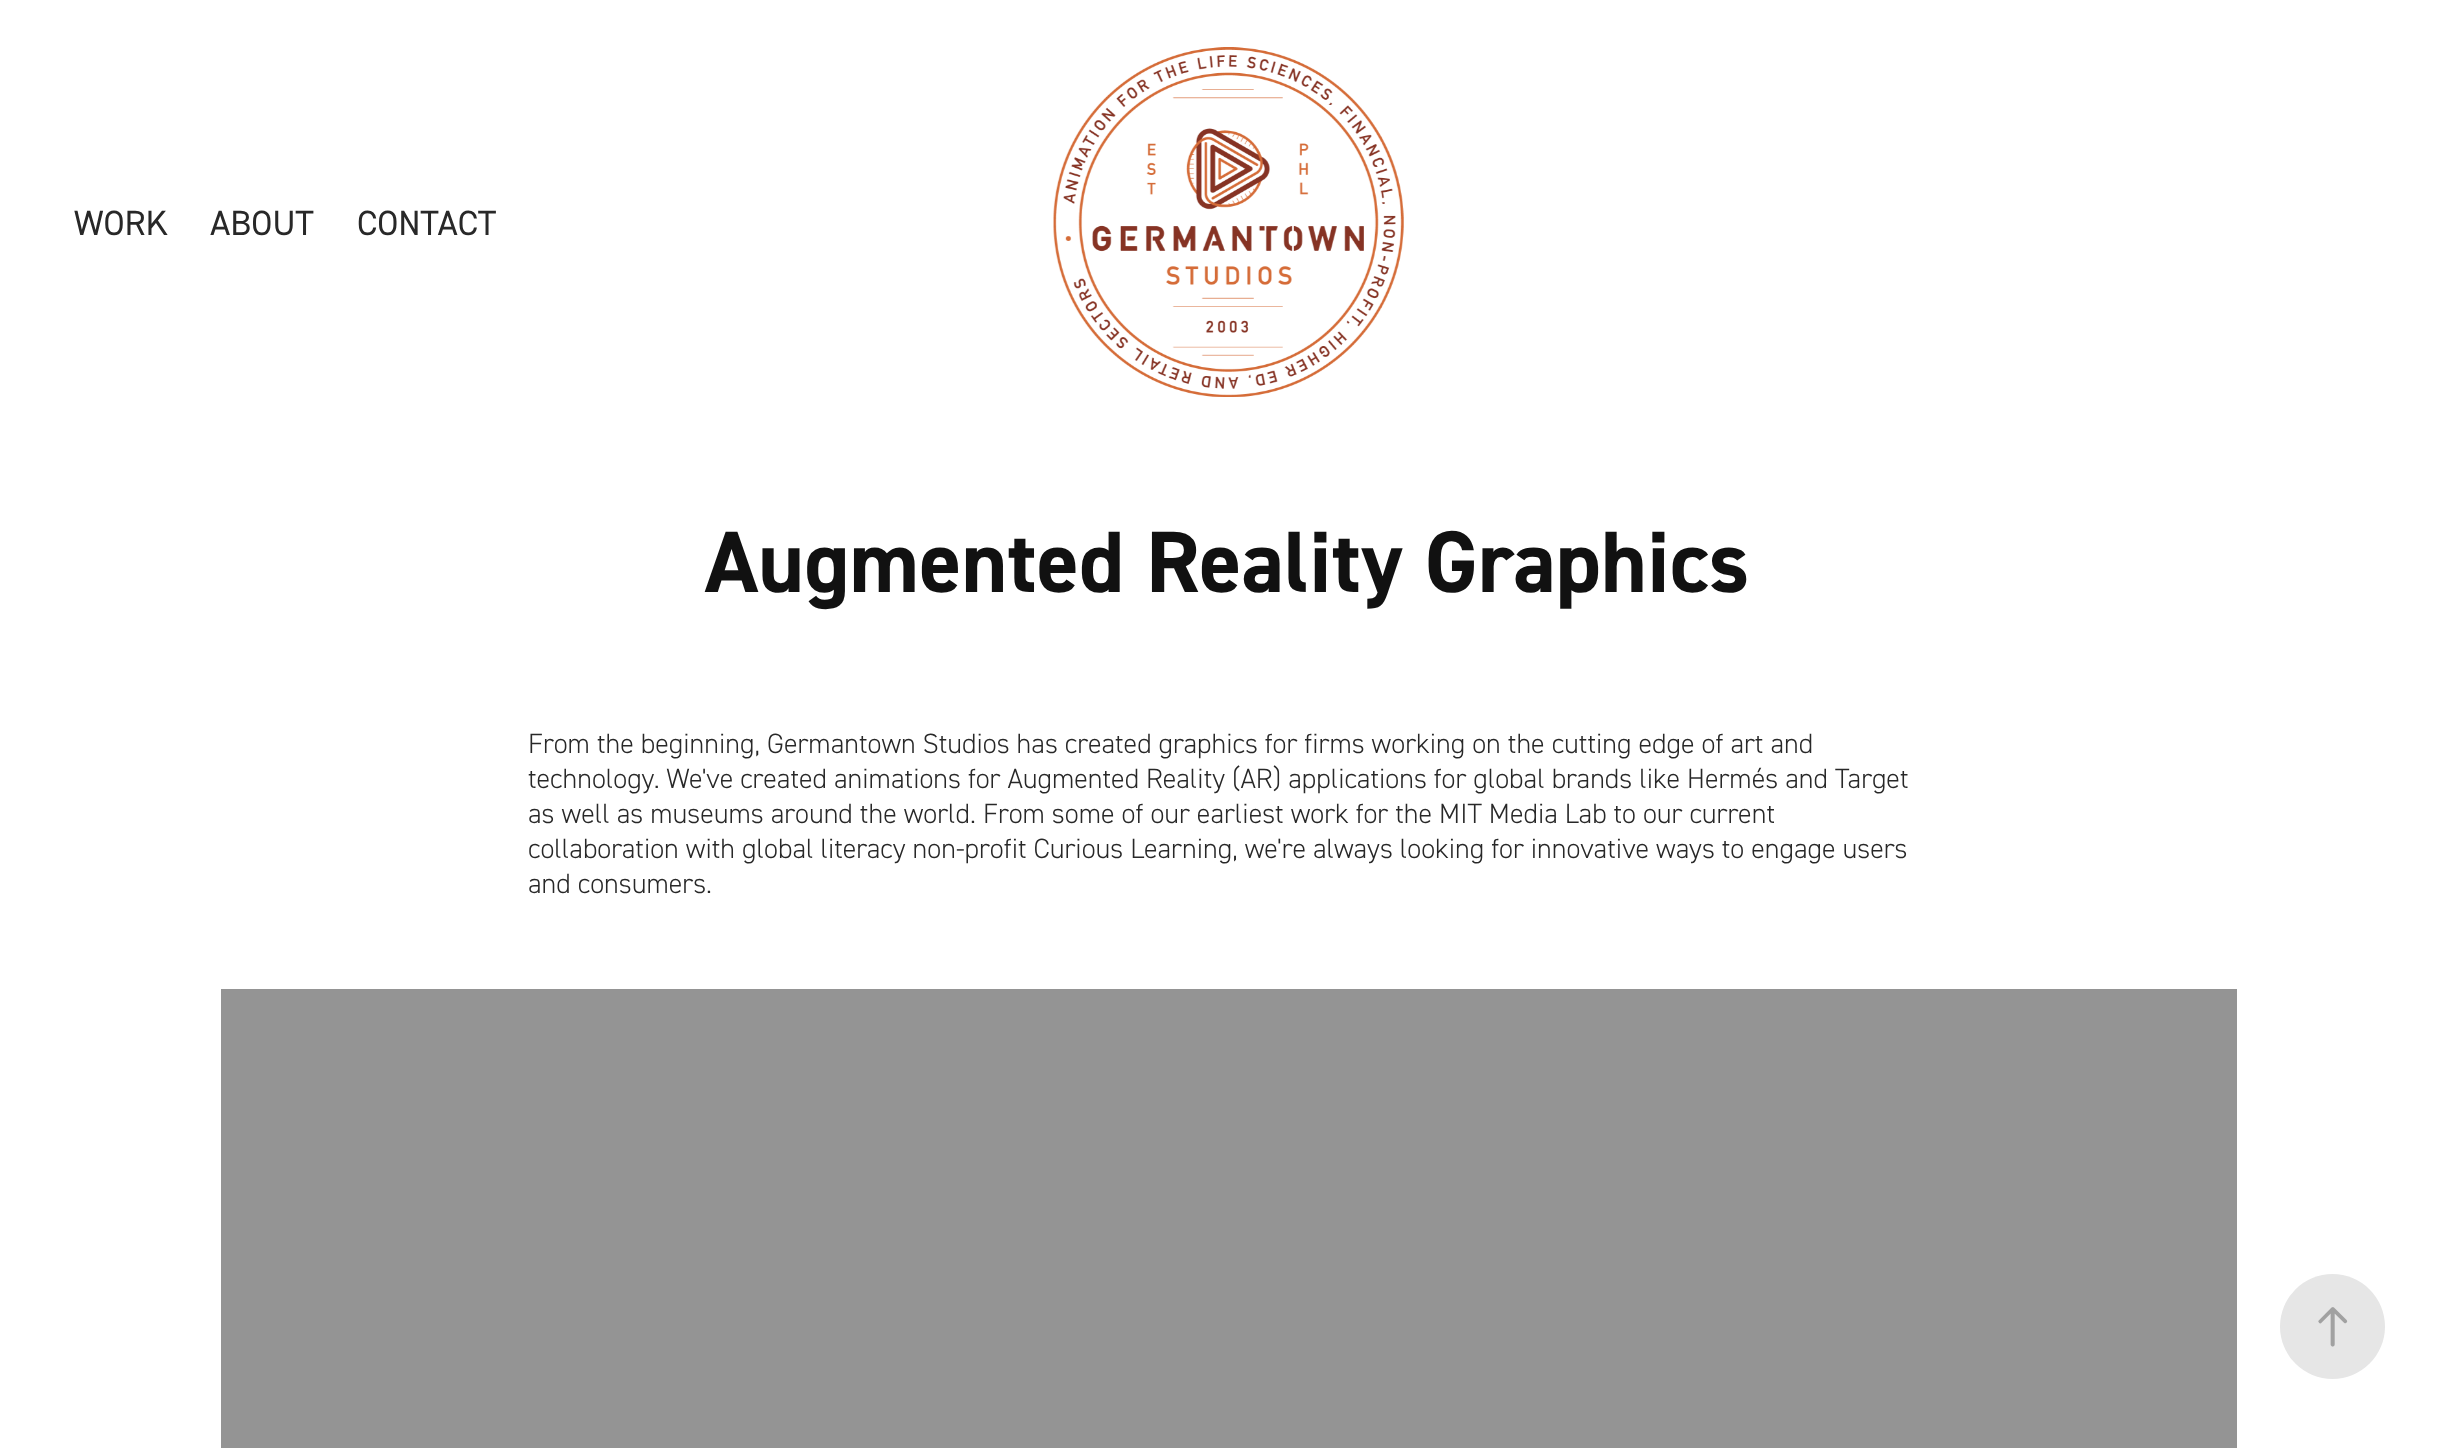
<svg xmlns="http://www.w3.org/2000/svg" width="2455" height="1448">
<rect width="100%" height="100%" fill="#fff"/>
<text x="74" y="235" style="font-family:'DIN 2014';font-size:35px;fill:#282828">WORK</text>
<text x="210" y="235" style="font-family:'DIN 2014';font-size:35px;fill:#282828">ABOUT</text>
<text x="357" y="235" style="font-family:'DIN 2014';font-size:35px;fill:#282828">CONTACT</text>
<image x="1053" y="47" width="351" height="350" href="media/1.png"/>
<text x="705" y="592" style="font-family:'DIN 2014';font-size:87.5px;font-weight:bold;fill:#111">Augmented Reality Graphics</text>
<text x="528" y="753" style="font-family:'DIN 2014';font-size:28px;font-weight:300;fill:#282828">From the beginning, Germantown Studios has created graphics for firms working on the cutting edge of art and</text>
<text x="528" y="788" style="font-family:'DIN 2014';font-size:28px;font-weight:300;fill:#282828">technology. We've created animations for Augmented Reality (AR) applications for global brands like Hermés and Target</text>
<text x="528" y="823" style="font-family:'DIN 2014';font-size:28px;font-weight:300;fill:#282828">as well as museums around the world. From some of our earliest work for the MIT Media Lab to our current</text>
<text x="528" y="858" style="font-family:'DIN 2014';font-size:28px;font-weight:300;fill:#282828">collaboration with global literacy non-profit Curious Learning, we're always looking for innovative ways to engage users</text>
<text x="528" y="893" style="font-family:'DIN 2014';font-size:28px;font-weight:300;fill:#282828">and consumers.</text>
<rect x="221" y="989" width="2016" height="459" fill="#949494"/>
<circle cx="2332.5" cy="1326.5" r="52.5" fill="#e6e6e6"/>
<image x="2318" y="1307" width="30" height="40" href="media/2.png"/>
</svg>
